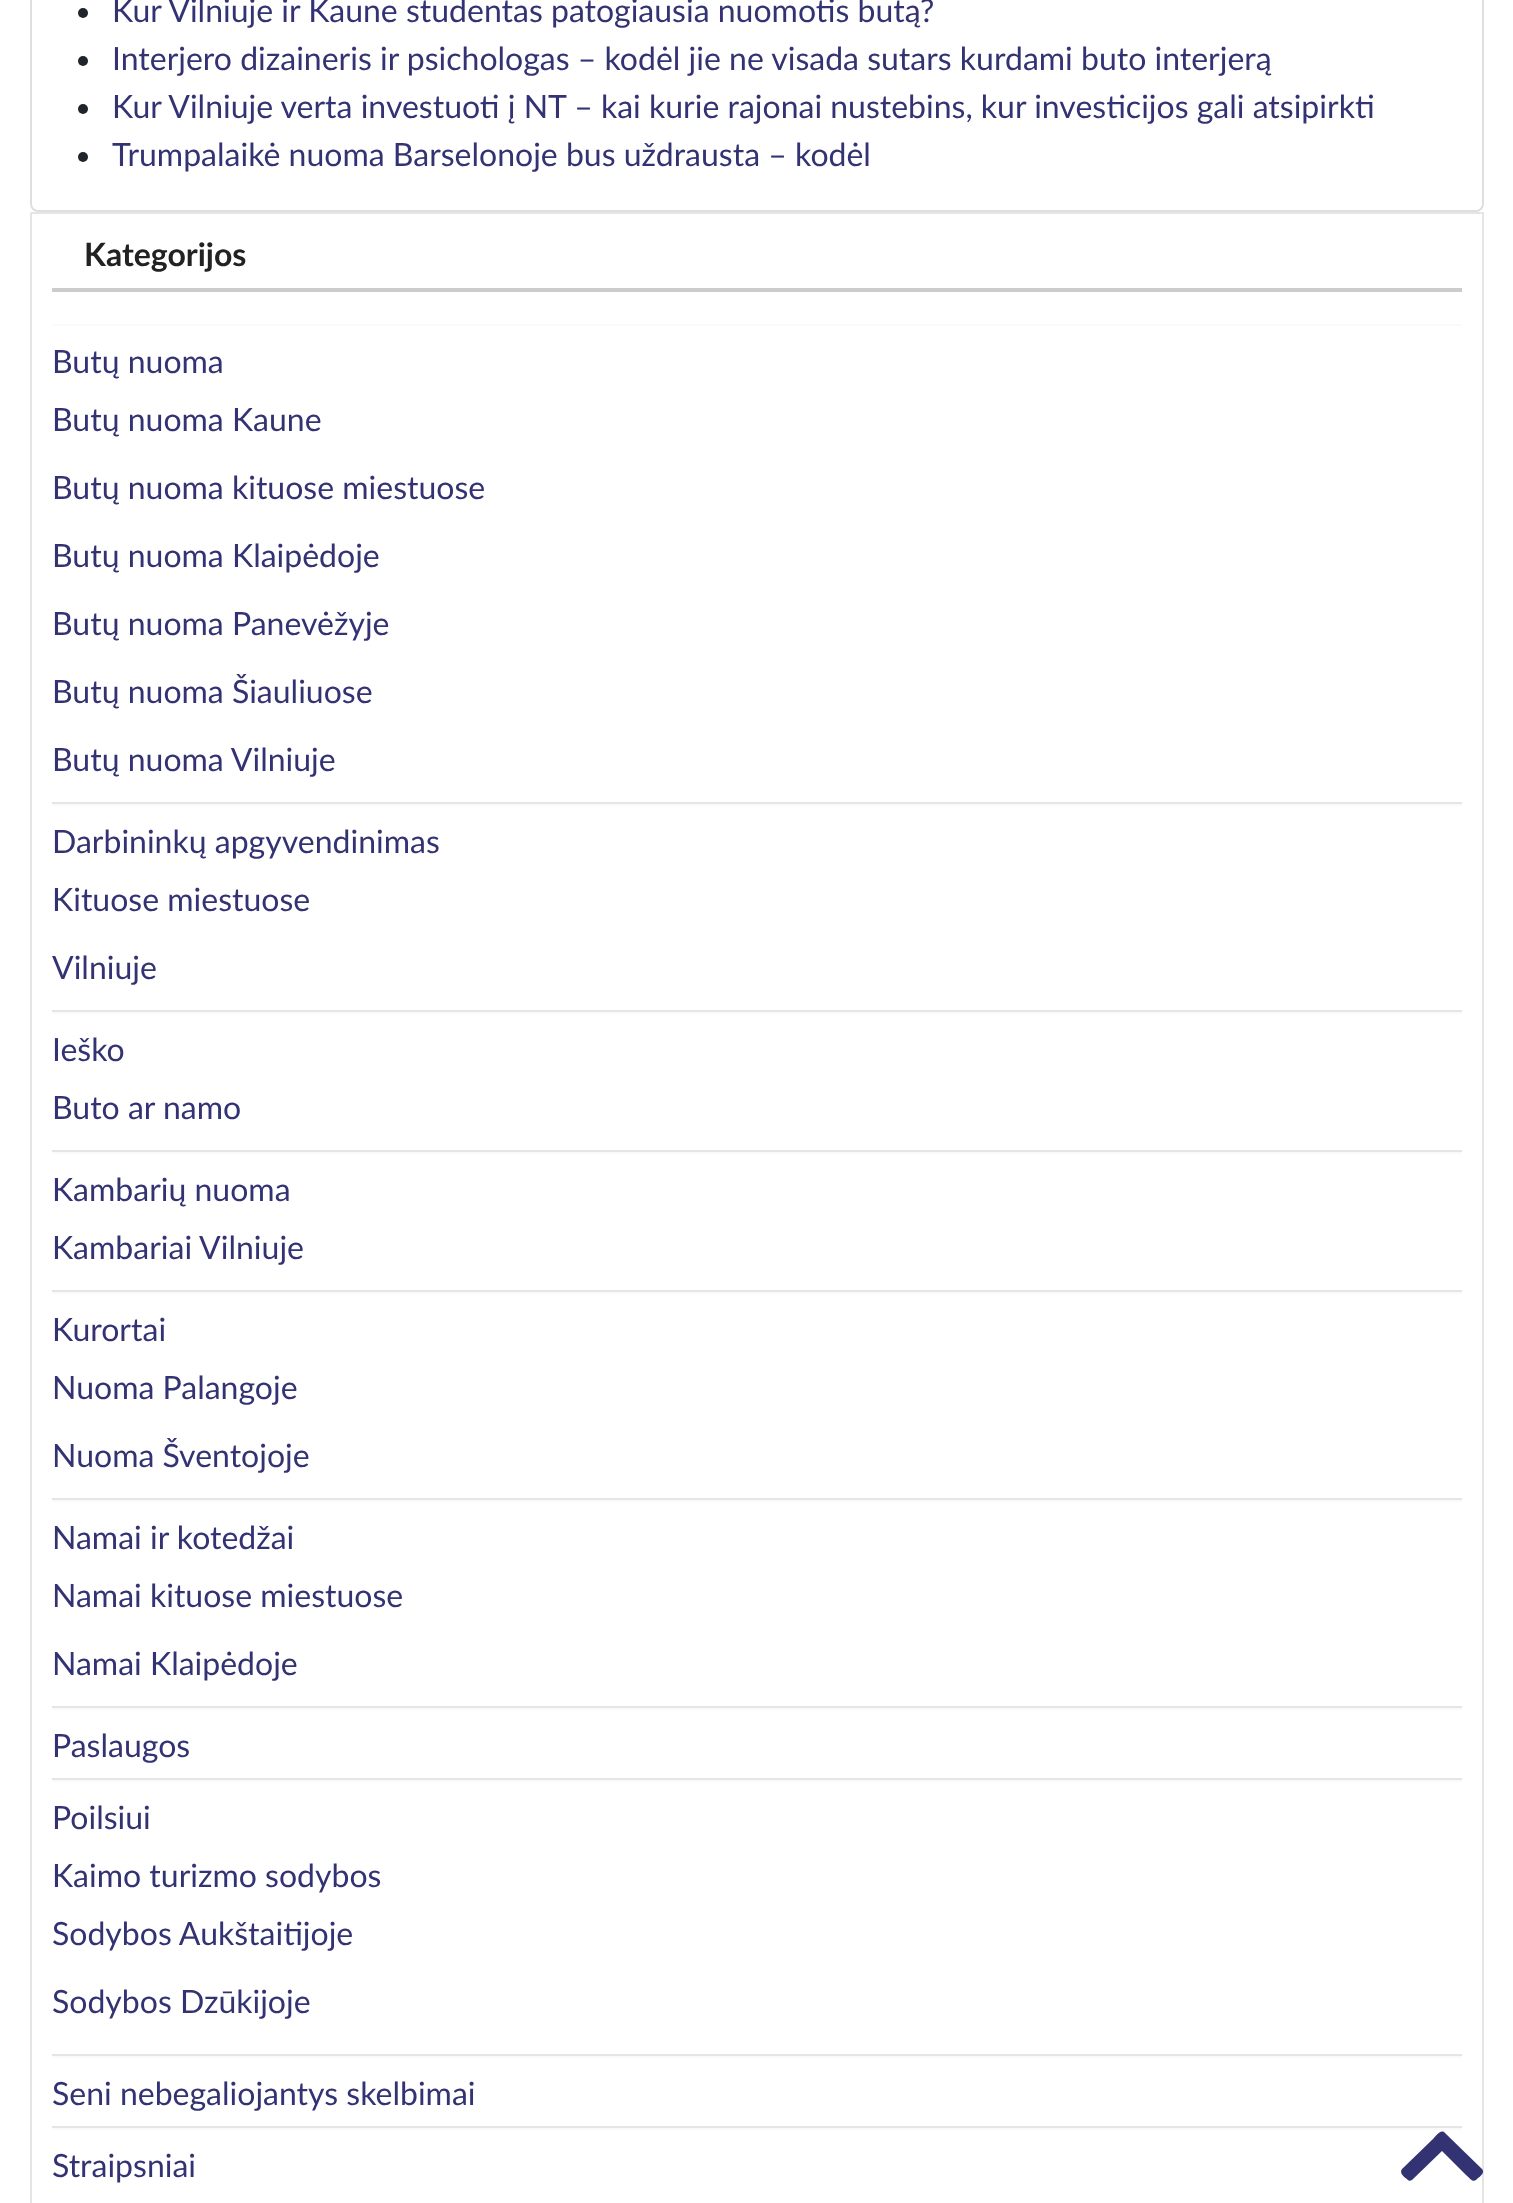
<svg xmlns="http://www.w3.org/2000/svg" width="1513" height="2203">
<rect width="100%" height="100%" fill="#fff"/>
<rect x="31" y="-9" width="1452" height="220" rx="7" fill="none" stroke="#dfdfdf" stroke-width="2"/>
<circle cx="83" cy="13" r="5" fill="#212529"/>
<text x="112" y="22" style="font-family:Lato;font-size:32px;fill:#333374">Kur Vilniuje ir Kaune studentas patogiausia nuomotis butą?</text>
<circle cx="83" cy="61" r="5" fill="#212529"/>
<text x="112" y="70" style="font-family:Lato;font-size:32px;fill:#333374">Interjero dizaineris ir psichologas – kodėl jie ne visada sutars kurdami buto interjerą</text>
<circle cx="83" cy="109" r="5" fill="#212529"/>
<text x="112" y="118" style="font-family:Lato;font-size:32px;fill:#333374">Kur Vilniuje verta investuoti į NT – kai kurie rajonai nustebins, kur investicijos gali atsipirkti</text>
<circle cx="83" cy="157" r="5" fill="#212529"/>
<text x="112" y="166" style="font-family:Lato;font-size:32px;fill:#333374">Trumpalaikė nuoma Barselonoje bus uždrausta – kodėl</text>
<rect x="31" y="213" width="1452" height="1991" fill="none" stroke="#e5e5e5" stroke-width="2"/>
<rect x="52" y="288" width="1410" height="4" fill="#ccc"/>
<text x="84" y="266" style="font-family:Lato;font-size:32px;font-weight:bold;fill:#222">Kategorijos</text>
<rect x="52" y="324" width="1410" height="2" fill="#fafafa"/>
<rect x="52" y="802" width="1410" height="2" fill="#e5e5e5"/>
<text x="52" y="373" style="font-family:Lato;font-size:32px;fill:#333374">Butų nuoma</text>
<text x="52" y="431" style="font-family:Lato;font-size:32px;fill:#333374">Butų nuoma Kaune</text>
<text x="52" y="499" style="font-family:Lato;font-size:32px;fill:#333374">Butų nuoma kituose miestuose</text>
<text x="52" y="567" style="font-family:Lato;font-size:32px;fill:#333374">Butų nuoma Klaipėdoje</text>
<text x="52" y="635" style="font-family:Lato;font-size:32px;fill:#333374">Butų nuoma Panevėžyje</text>
<text x="52" y="703" style="font-family:Lato;font-size:32px;fill:#333374">Butų nuoma Šiauliuose</text>
<text x="52" y="771" style="font-family:Lato;font-size:32px;fill:#333374">Butų nuoma Vilniuje</text>
<rect x="52" y="804" width="1410" height="2" fill="#fafafa"/>
<rect x="52" y="1010" width="1410" height="2" fill="#e5e5e5"/>
<text x="52" y="853" style="font-family:Lato;font-size:32px;fill:#333374">Darbininkų apgyvendinimas</text>
<text x="52" y="911" style="font-family:Lato;font-size:32px;fill:#333374">Kituose miestuose</text>
<text x="52" y="979" style="font-family:Lato;font-size:32px;fill:#333374">Vilniuje</text>
<rect x="52" y="1012" width="1410" height="2" fill="#fafafa"/>
<rect x="52" y="1150" width="1410" height="2" fill="#e5e5e5"/>
<text x="52" y="1061" style="font-family:Lato;font-size:32px;fill:#333374">Ieško</text>
<text x="52" y="1119" style="font-family:Lato;font-size:32px;fill:#333374">Buto ar namo</text>
<rect x="52" y="1152" width="1410" height="2" fill="#fafafa"/>
<rect x="52" y="1290" width="1410" height="2" fill="#e5e5e5"/>
<text x="52" y="1201" style="font-family:Lato;font-size:32px;fill:#333374">Kambarių nuoma</text>
<text x="52" y="1259" style="font-family:Lato;font-size:32px;fill:#333374">Kambariai Vilniuje</text>
<rect x="52" y="1292" width="1410" height="2" fill="#fafafa"/>
<rect x="52" y="1498" width="1410" height="2" fill="#e5e5e5"/>
<text x="52" y="1341" style="font-family:Lato;font-size:32px;fill:#333374">Kurortai</text>
<text x="52" y="1399" style="font-family:Lato;font-size:32px;fill:#333374">Nuoma Palangoje</text>
<text x="52" y="1467" style="font-family:Lato;font-size:32px;fill:#333374">Nuoma Šventojoje</text>
<rect x="52" y="1500" width="1410" height="2" fill="#fafafa"/>
<rect x="52" y="1706" width="1410" height="2" fill="#e5e5e5"/>
<text x="52" y="1549" style="font-family:Lato;font-size:32px;fill:#333374">Namai ir kotedžai</text>
<text x="52" y="1607" style="font-family:Lato;font-size:32px;fill:#333374">Namai kituose miestuose</text>
<text x="52" y="1675" style="font-family:Lato;font-size:32px;fill:#333374">Namai Klaipėdoje</text>
<rect x="52" y="1708" width="1410" height="2" fill="#fafafa"/>
<rect x="52" y="1778" width="1410" height="2" fill="#e5e5e5"/>
<text x="52" y="1757" style="font-family:Lato;font-size:32px;fill:#333374">Paslaugos</text>
<rect x="52" y="1780" width="1410" height="2" fill="#fafafa"/>
<rect x="52" y="2054" width="1410" height="2" fill="#e5e5e5"/>
<text x="52" y="1829" style="font-family:Lato;font-size:32px;fill:#333374">Poilsiui</text>
<text x="52" y="1887" style="font-family:Lato;font-size:32px;fill:#333374">Kaimo turizmo sodybos</text>
<text x="52" y="1945" style="font-family:Lato;font-size:32px;fill:#333374">Sodybos Aukštaitijoje</text>
<text x="52" y="2013" style="font-family:Lato;font-size:32px;fill:#333374">Sodybos Dzūkijoje</text>
<rect x="52" y="2056" width="1410" height="2" fill="#fafafa"/>
<rect x="52" y="2126" width="1410" height="2" fill="#e5e5e5"/>
<text x="52" y="2105" style="font-family:Lato;font-size:32px;fill:#333374">Seni nebegaliojantys skelbimai</text>
<rect x="52" y="2128" width="1410" height="2" fill="#fafafa"/>
<text x="52" y="2177" style="font-family:Lato;font-size:32px;fill:#333374">Straipsniai</text>
<path d="M1445 2133l37 36c3 3-1 7-4 9c-5 6-7 1-12-3l-24-24l-30 29c-2 1-4 1-5-1c-3-2-8-6-5-10l31-30c2-2 8-11 12-6z" fill="#333374"/>
</svg>
